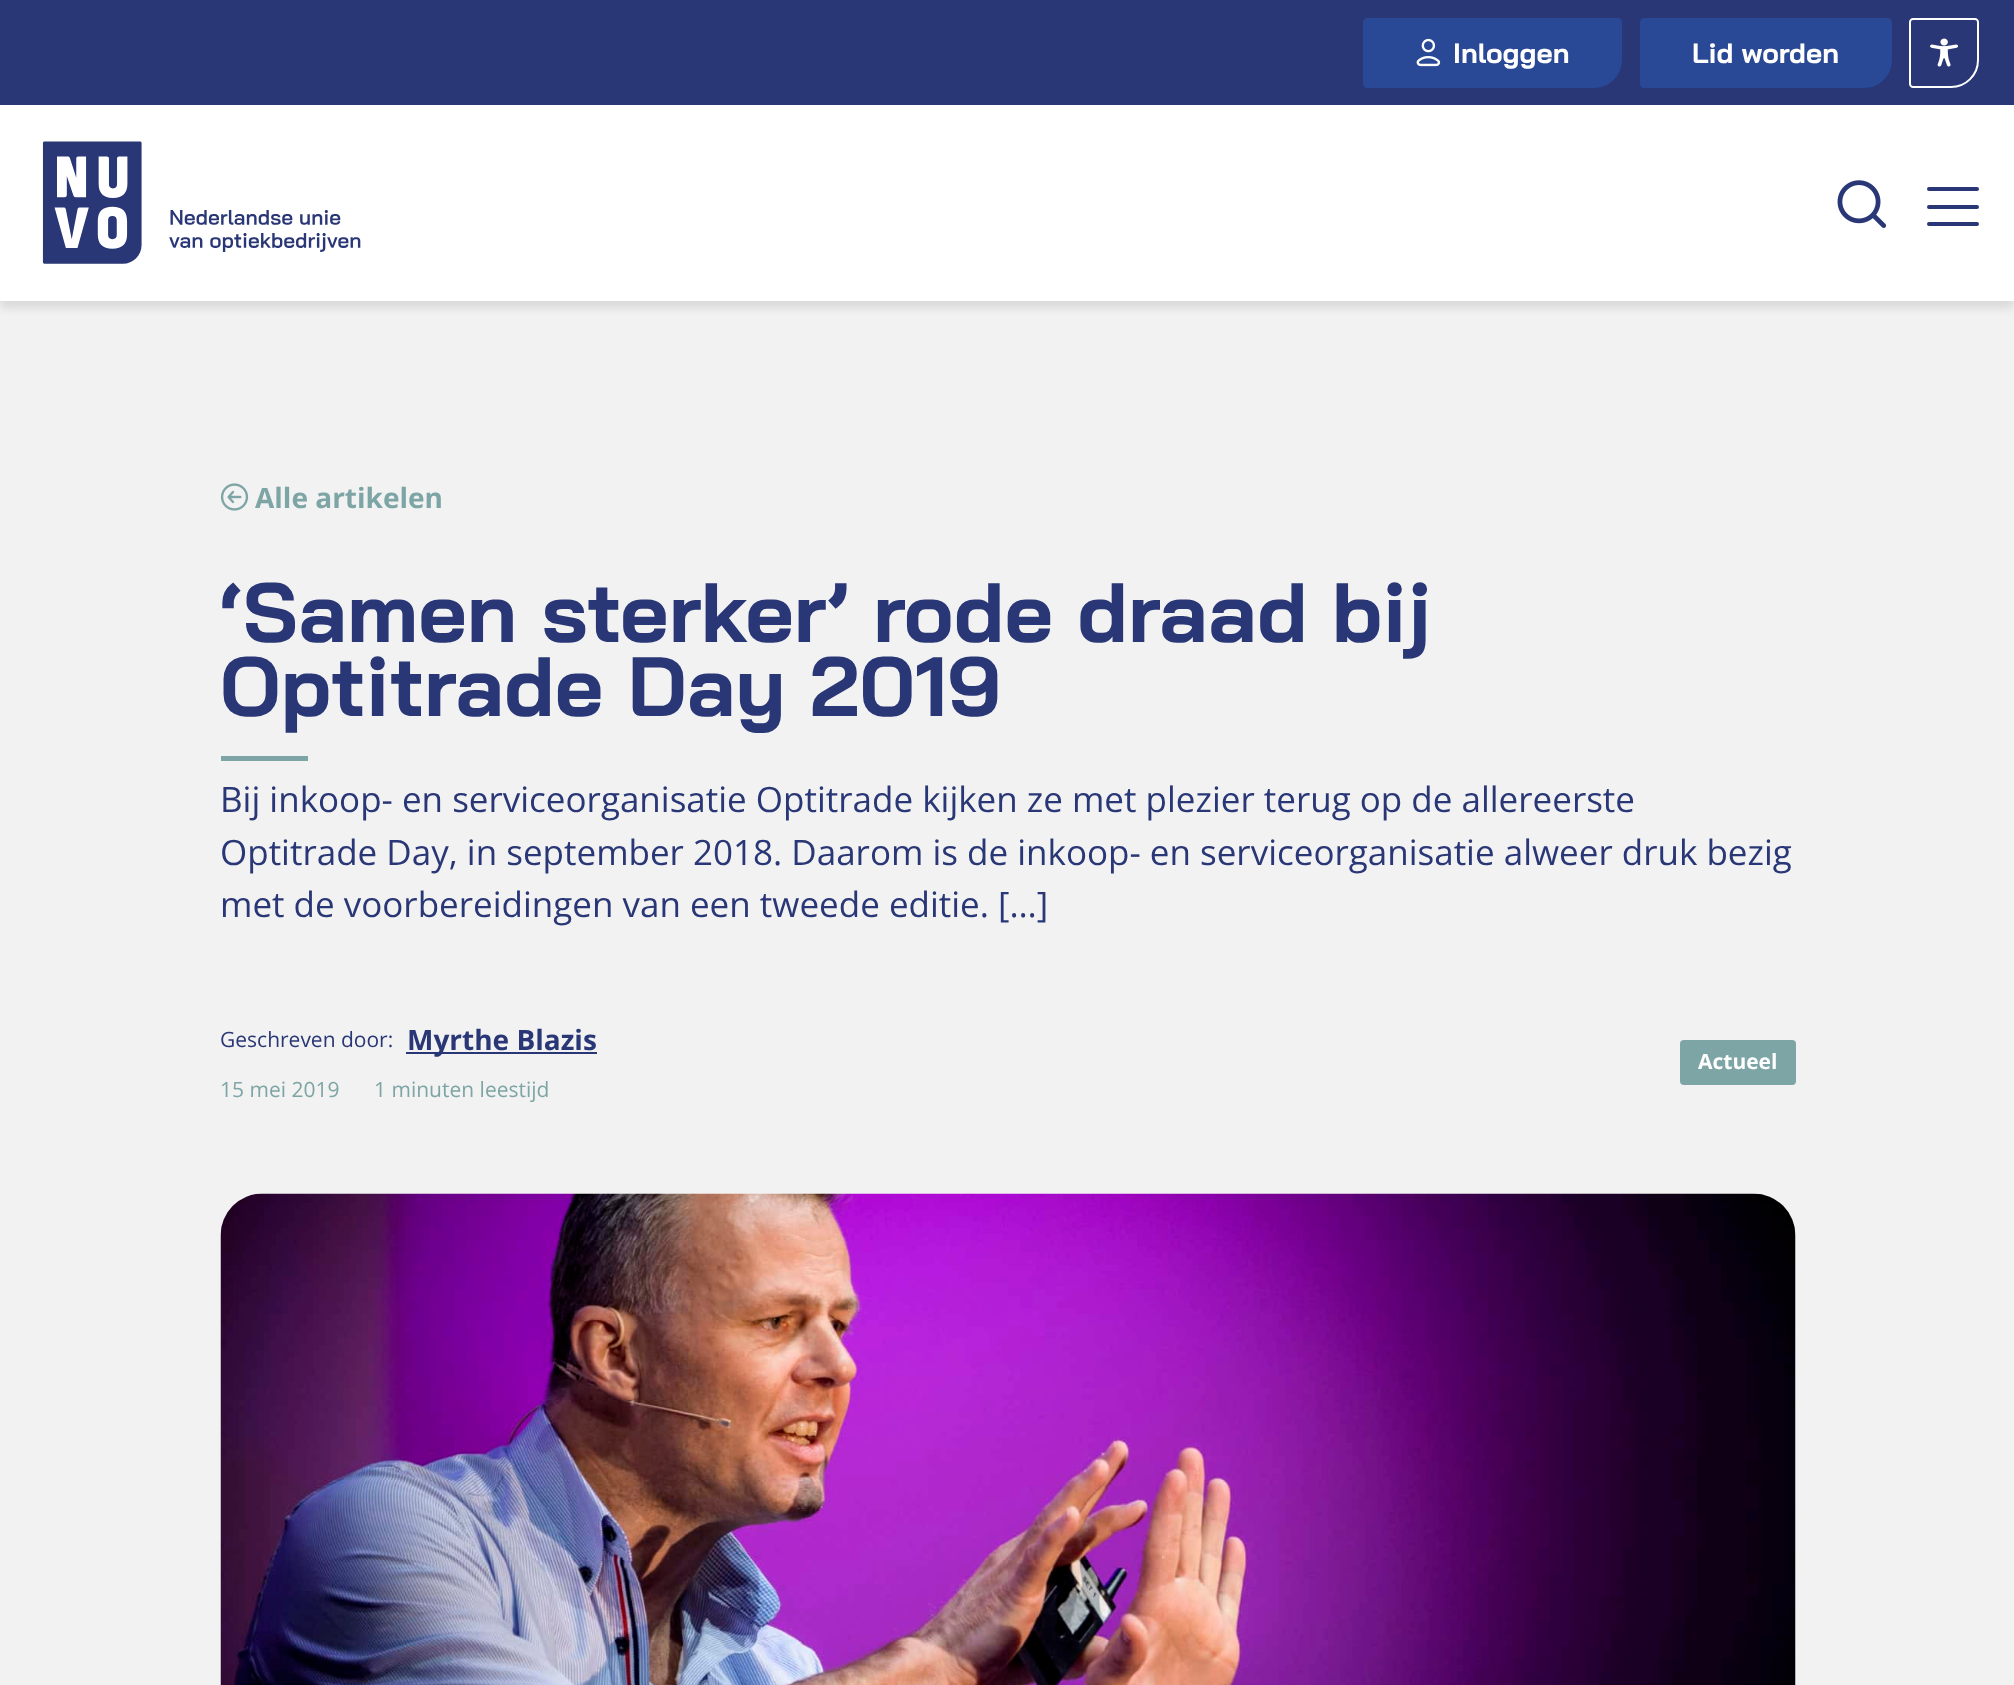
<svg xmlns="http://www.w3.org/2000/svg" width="2014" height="1685">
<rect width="100%" height="100%" fill="#f2f2f2"/>
<rect y="7" width="2014" height="301" fill="#0000001a" filter="blur(5px)"/>
<rect width="2014" height="105" fill="#2a3776"/>
<path d="M1367 18h251c2 0 4 2 4 4v38c0 15.5-12.5 28-28 28h-227c-2 0-4-2-4-4v-62c0-2 2-4 4-4z" fill="#294895"/>
<image x="1416" y="38" width="25" height="29" href="media/1.png"/>
<text x="1453" y="63" style="font-family:Bai Jamjuree;font-size:28px;font-weight:bold;fill:#fff">Inloggen</text>
<path d="M1644 18h244c2 0 4 2 4 4v38c0 15.5-12.5 28-28 28h-220c-2 0-4-2-4-4v-62c0-2 2-4 4-4z" fill="#294895"/>
<text x="1692" y="63" style="font-family:Bai Jamjuree;font-size:28px;font-weight:bold;fill:#fff">Lid worden</text>
<path d="M1913 19h62c1.5 0 3 1.5 3 3v38c0 15-12 27-27 27h-38c-1.5 0-3-1.5-3-3v-62c0-1.5 1.5-3 3-3z" fill="none" stroke="#fff" stroke-width="2"/>
<image x="1930" y="38" width="28" height="29" href="media/2.png"/>
<rect y="105" width="2014" height="196" fill="#fff"/>
<image x="42" y="141" width="319" height="123" href="media/3.png"/>
<image x="1837" y="180" width="50" height="48" href="media/4.png"/>
<rect x="1927" y="205" width="52" height="4" rx="2" fill="#2a3776"/>
<rect x="1927" y="187" width="52" height="4" rx="2" fill="#2a3776"/>
<rect x="1927" y="222" width="52" height="4" rx="2" fill="#2a3776"/>
<image x="220" y="483" width="29" height="28" href="media/5.png"/>
<text x="255" y="508" style="font-family:Open Sans;font-size:28px;font-weight:bold;fill:#7ea5a5">Alle artikelen</text>
<text x="220" y="642" style="font-family:Bai Jamjuree;font-size:84px;font-weight:bold;fill:#2a3776">‘Samen sterker’ rode draad bij</text>
<text x="220" y="716" style="font-family:Bai Jamjuree;font-size:84px;font-weight:bold;fill:#2a3776">Optitrade Day 2019</text>
<rect x="221" y="756" width="87" height="5" fill="#7ea5a5"/>
<text x="220" y="812" style="font-family:Open Sans;font-size:35px;fill:#2a3776">Bij inkoop- en serviceorganisatie Optitrade kijken ze met plezier terug op de allereerste</text>
<text x="220" y="865" style="font-family:Open Sans;font-size:35px;fill:#2a3776">Optitrade Day, in september 2018. Daarom is de inkoop- en serviceorganisatie alweer druk bezig</text>
<text x="220" y="917" style="font-family:Open Sans;font-size:35px;fill:#2a3776">met de voorbereidingen van een tweede editie. […]</text>
<text x="220" y="1047" style="font-family:Open Sans;font-size:21px;fill:#2a3776">Geschreven door:</text>
<rect x="406" y="1052" width="191" height="2" fill="#2a3776"/>
<text x="407" y="1050" style="font-family:Open Sans;font-size:28px;font-weight:bold;fill:#2a3776">Myrthe Blazis</text>
<text x="220" y="1097" style="font-family:Open Sans;font-size:21px;fill:#7ea5a5">15 mei 2019</text>
<text x="374" y="1097" style="font-family:Open Sans;font-size:21px;fill:#7ea5a5">1 minuten leestijd</text>
<rect x="1680" y="1040" width="116" height="45" rx="4" fill="#7ea5a5"/>
<text x="1698" y="1069" style="font-family:Open Sans;font-size:21px;font-weight:bold;fill:#fff">Actueel</text>
<image x="220" y="1193" width="1576" height="492" href="media/6.png"/>
</svg>
